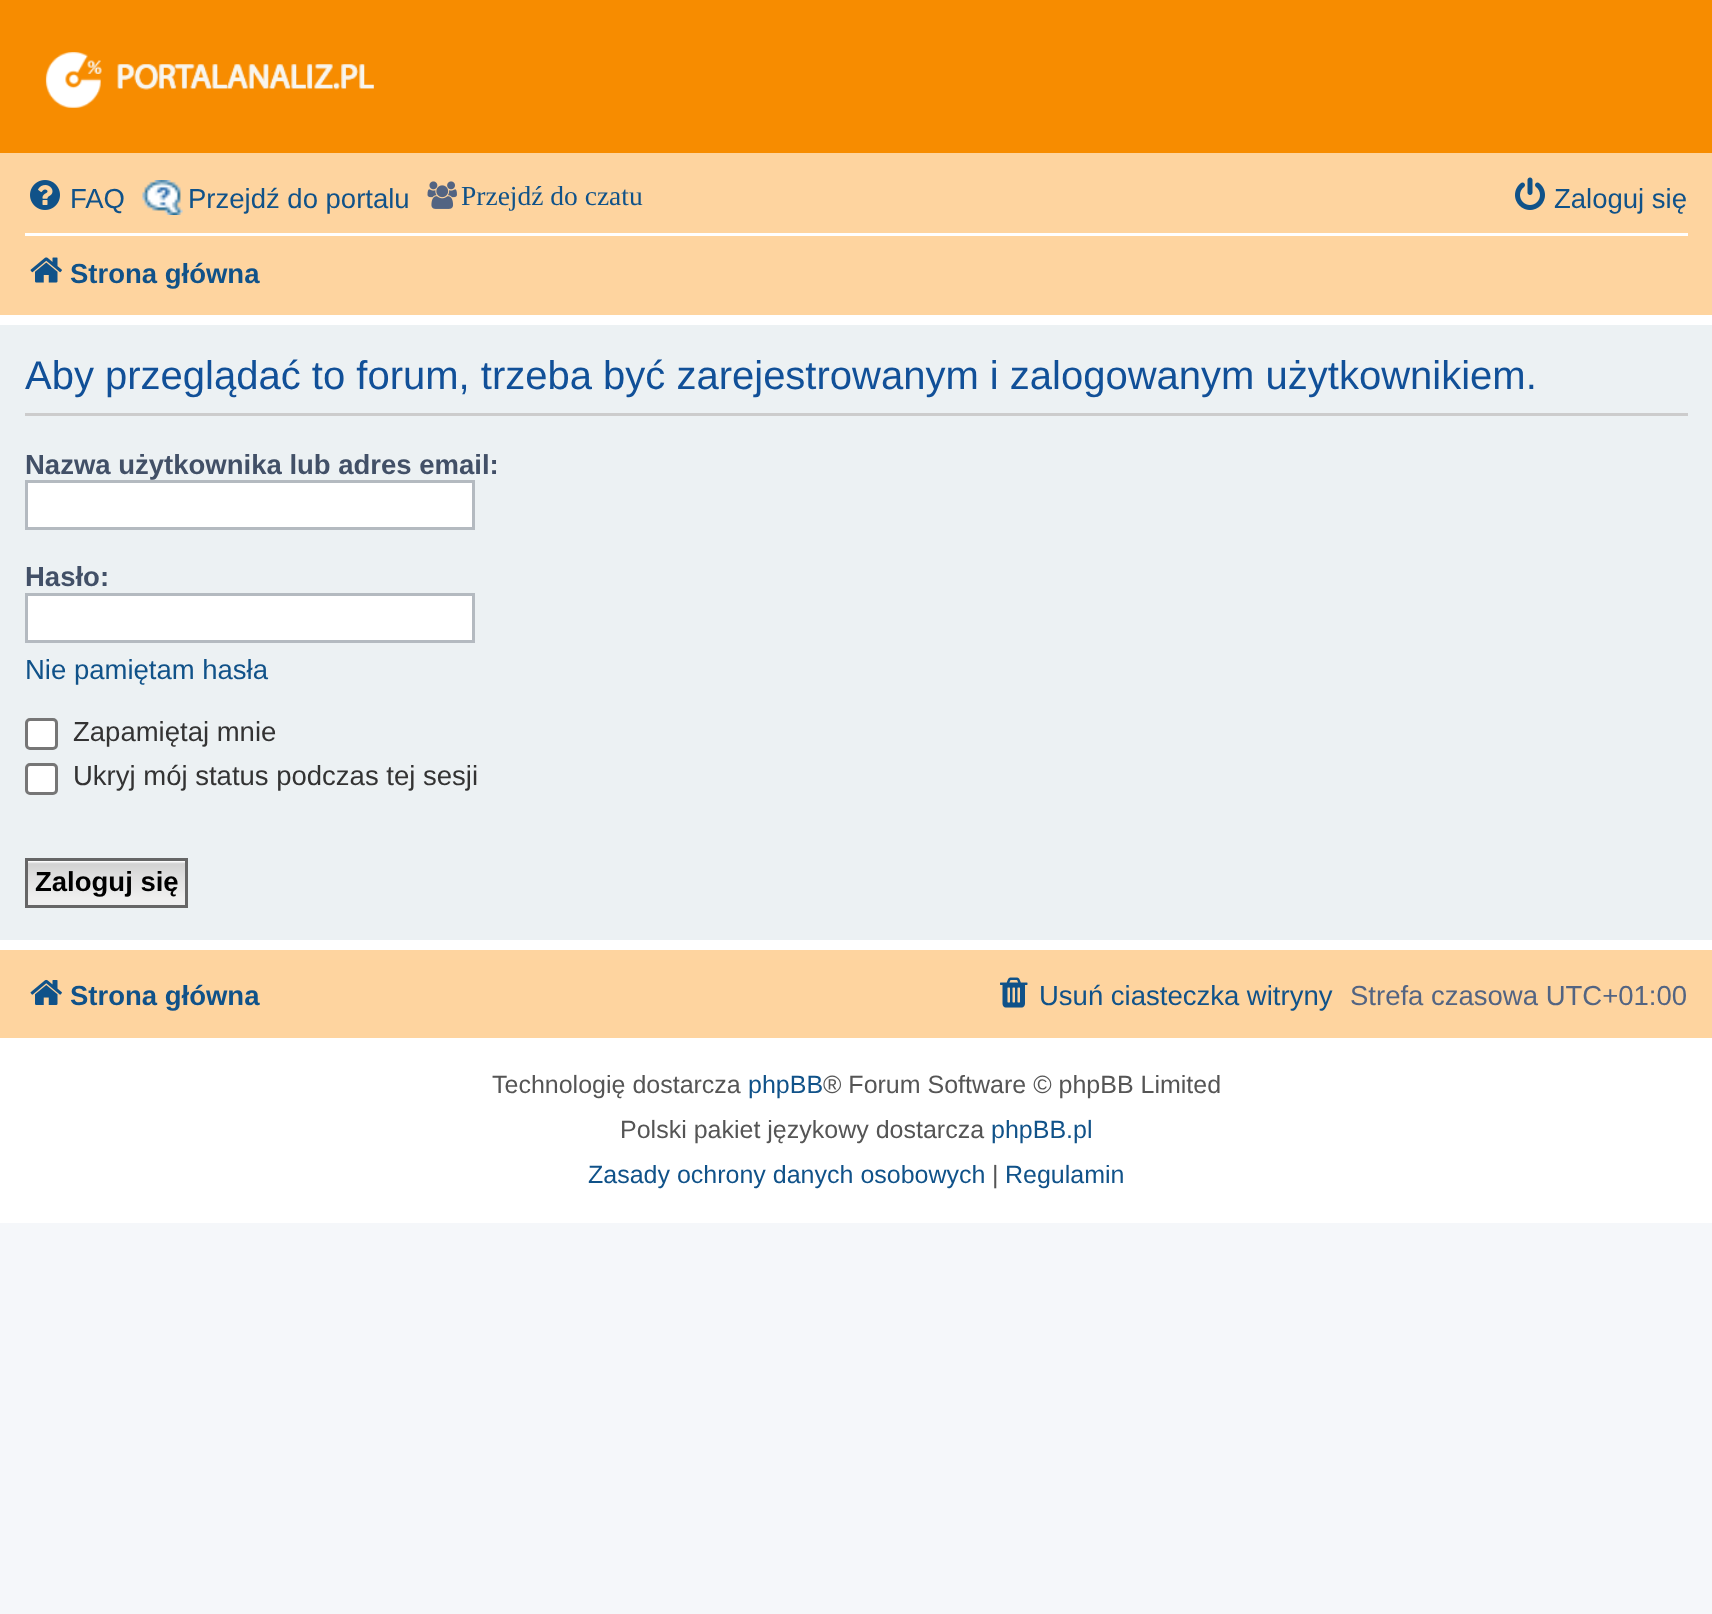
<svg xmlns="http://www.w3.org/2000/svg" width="1712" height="1614">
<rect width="100%" height="100%" fill="#f5f7fa"/>
<rect y="315" width="1712" height="908" fill="#fff"/>
<rect width="1712" height="153" fill="#f78c00"/>
<image x="45" y="52" width="329" height="56" href="media/1.png"/>
<rect y="153" width="1712" height="162" fill="#fed49f"/>
<image x="30" y="180" width="30" height="30" href="media/2.png"/>
<text x="70" y="208" style="font-family:Liberation Sans;font-size:27.5px;fill:#105289">FAQ</text>
<image x="142" y="180" width="41" height="35" href="media/3.png"/>
<text x="188" y="208" style="font-family:Liberation Sans;font-size:27.5px;fill:#105289">Przejdź do portalu</text>
<image x="427" y="181" width="30" height="28" href="media/4.png"/>
<text x="461" y="205" style="font-family:Liberation Serif;font-size:27.5px;fill:#105289">Przejdź do czatu</text>
<image x="1515" y="177" width="30" height="33" href="media/5.png"/>
<text x="1554" y="208" style="font-family:Liberation Sans;font-size:27.5px;fill:#105289">Zaloguj się</text>
<rect x="25" y="233" width="1663" height="3" fill="#fff"/>
<image x="30" y="257" width="32" height="26" href="media/6.png"/>
<text x="70" y="283" style="font-family:Liberation Sans;font-size:27.5px;font-weight:bold;fill:#105289">Strona główna</text>
<rect y="325" width="1712" height="615" fill="#ecf1f3"/>
<rect x="25" y="413" width="1663" height="3" fill="#ccc"/>
<text x="25" y="389" style="font-family:Liberation Sans;font-size:40px;fill:#115098">Aby przeglądać to forum, trzeba być zarejestrowanym i zalogowanym użytkownikiem.</text>
<text x="25" y="474" style="font-family:Liberation Sans;font-size:27.5px;font-weight:bold;fill:#425067">Nazwa użytkownika lub adres email:</text>
<rect x="26.5" y="481.5" width="447" height="47" fill="#fff" stroke="#b4bac0" stroke-width="3"/>
<text x="25" y="586" style="font-family:Liberation Sans;font-size:27.5px;font-weight:bold;fill:#425067">Hasło:</text>
<rect x="26.5" y="594.5" width="447" height="47" fill="#fff" stroke="#b4bac0" stroke-width="3"/>
<text x="25" y="679" style="font-family:Liberation Sans;font-size:27.5px;fill:#105289">Nie pamiętam hasła</text>
<rect x="26.5" y="719.5" width="30" height="29" rx="3.5" fill="#fff" stroke="#767676" stroke-width="3"/>
<text x="73" y="741" style="font-family:Liberation Sans;font-size:27.5px;fill:#333">Zapamiętaj mnie</text>
<rect x="26.5" y="764.5" width="30" height="29" rx="3.5" fill="#fff" stroke="#767676" stroke-width="3"/>
<text x="73" y="785" style="font-family:Liberation Sans;font-size:27.5px;fill:#333">Ukryj mój status podczas tej sesji</text>
<image x="28" y="861" width="157" height="44" href="media/7.png"/>
<rect x="26.5" y="859.5" width="160" height="47" fill="none" stroke="#666" stroke-width="3"/>
<text x="35" y="891" style="font-family:Liberation Sans;font-size:27.5px;font-weight:bold;fill:#000">Zaloguj się</text>
<rect y="950" width="1712" height="88" fill="#fed49f"/>
<image x="30" y="979" width="32" height="26" href="media/8.png"/>
<text x="70" y="1005" style="font-family:Liberation Sans;font-size:27.5px;font-weight:bold;fill:#105289">Strona główna</text>
<image x="1000" y="977" width="28" height="31" href="media/9.png"/>
<text x="1039" y="1005" style="font-family:Liberation Sans;font-size:27.5px;fill:#105289">Usuń ciasteczka witryny</text>
<text x="1350" y="1005" style="font-family:Liberation Sans;font-size:27.5px;fill:#536482">Strefa czasowa UTC+01:00</text>
<text x="492" y="1093" style="font-family:Liberation Sans;font-size:25px;fill:#555">Technologię dostarcza</text>
<text x="748" y="1093" style="font-family:Liberation Sans;font-size:25px;fill:#105289">phpBB</text>
<text x="823" y="1093" style="font-family:Liberation Sans;font-size:25px;fill:#555">® Forum Software © phpBB Limited</text>
<text x="620" y="1138" style="font-family:Liberation Sans;font-size:25px;fill:#555">Polski pakiet językowy dostarcza</text>
<text x="991" y="1138" style="font-family:Liberation Sans;font-size:25px;fill:#105289">phpBB.pl</text>
<text x="588" y="1183" style="font-family:Liberation Sans;font-size:25px;fill:#105289">Zasady ochrony danych osobowych</text>
<text x="992" y="1183" style="font-family:Liberation Sans;font-size:25px;fill:#555">|</text>
<text x="1005" y="1183" style="font-family:Liberation Sans;font-size:25px;fill:#105289">Regulamin</text>
</svg>
